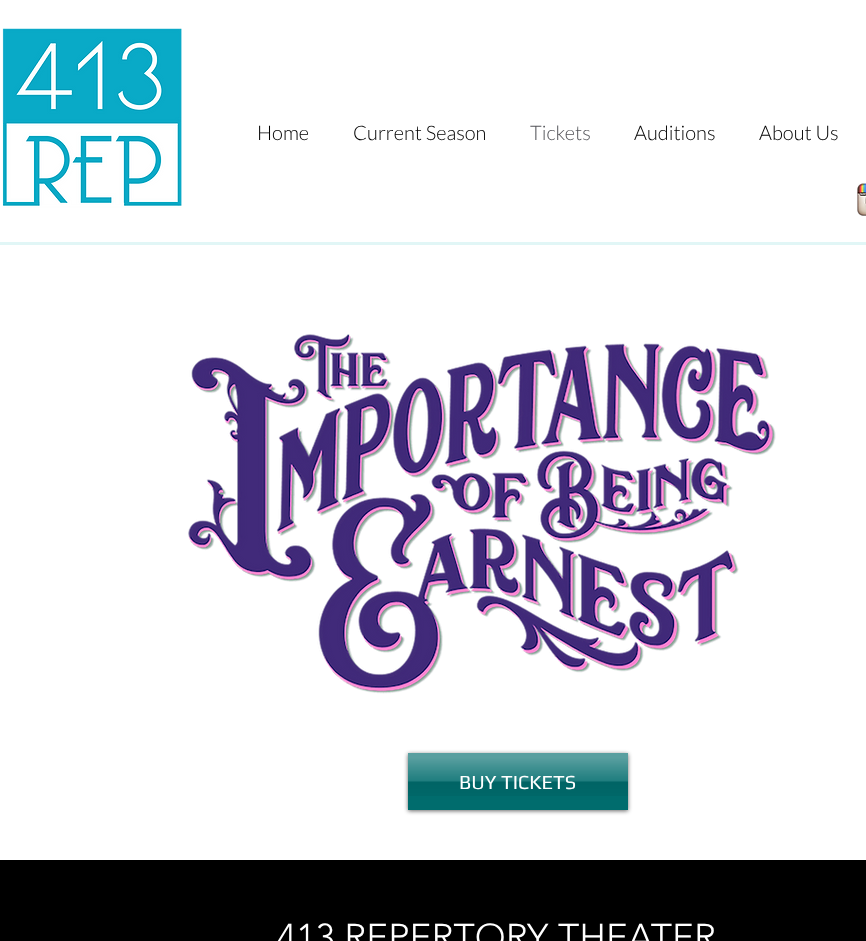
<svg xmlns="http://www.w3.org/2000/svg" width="866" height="941">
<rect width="100%" height="100%" fill="#e1f6f6"/>
<rect width="866" height="242" fill="#fff"/>
<image x="2" y="28" width="180" height="180" href="media/1.png"/>
<text x="257" y="140" style="font-family:Lato;font-size:20px;font-weight:300;fill:#000">Home</text>
<text x="353" y="140" style="font-family:Lato;font-size:20px;font-weight:300;fill:#000">Current Season</text>
<text x="530" y="140" style="font-family:Lato;font-size:20px;font-weight:300;fill:#535459">Tickets</text>
<text x="634" y="140" style="font-family:Lato;font-size:20px;font-weight:300;fill:#000">Auditions</text>
<text x="759" y="140" style="font-family:Lato;font-size:20px;font-weight:300;fill:#000">About Us</text>
<image x="857" y="183" width="9" height="33" href="media/2.png"/>
<rect y="245" width="866" height="615" fill="#fff"/>
<image x="188" y="334" width="588" height="360" href="media/3.png"/>
<rect x="408" y="754" width="220" height="57" fill="#00000099" filter="blur(2px)"/>
<rect x="408" y="753" width="220" height="57" fill="#006c6d"/>
<image x="408" y="753" width="220" height="43" href="media/4.png"/>
<text x="459" y="789" style="font-family:Play;font-size:20px;fill:#fff">BUY TICKETS</text>
<rect y="860" width="866" height="81" fill="#000"/>
<text x="277" y="950" style="font-family:'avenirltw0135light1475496';font-size:37px;font-weight:300;fill:#fff">413 REPERTORY THEATER</text>
</svg>
